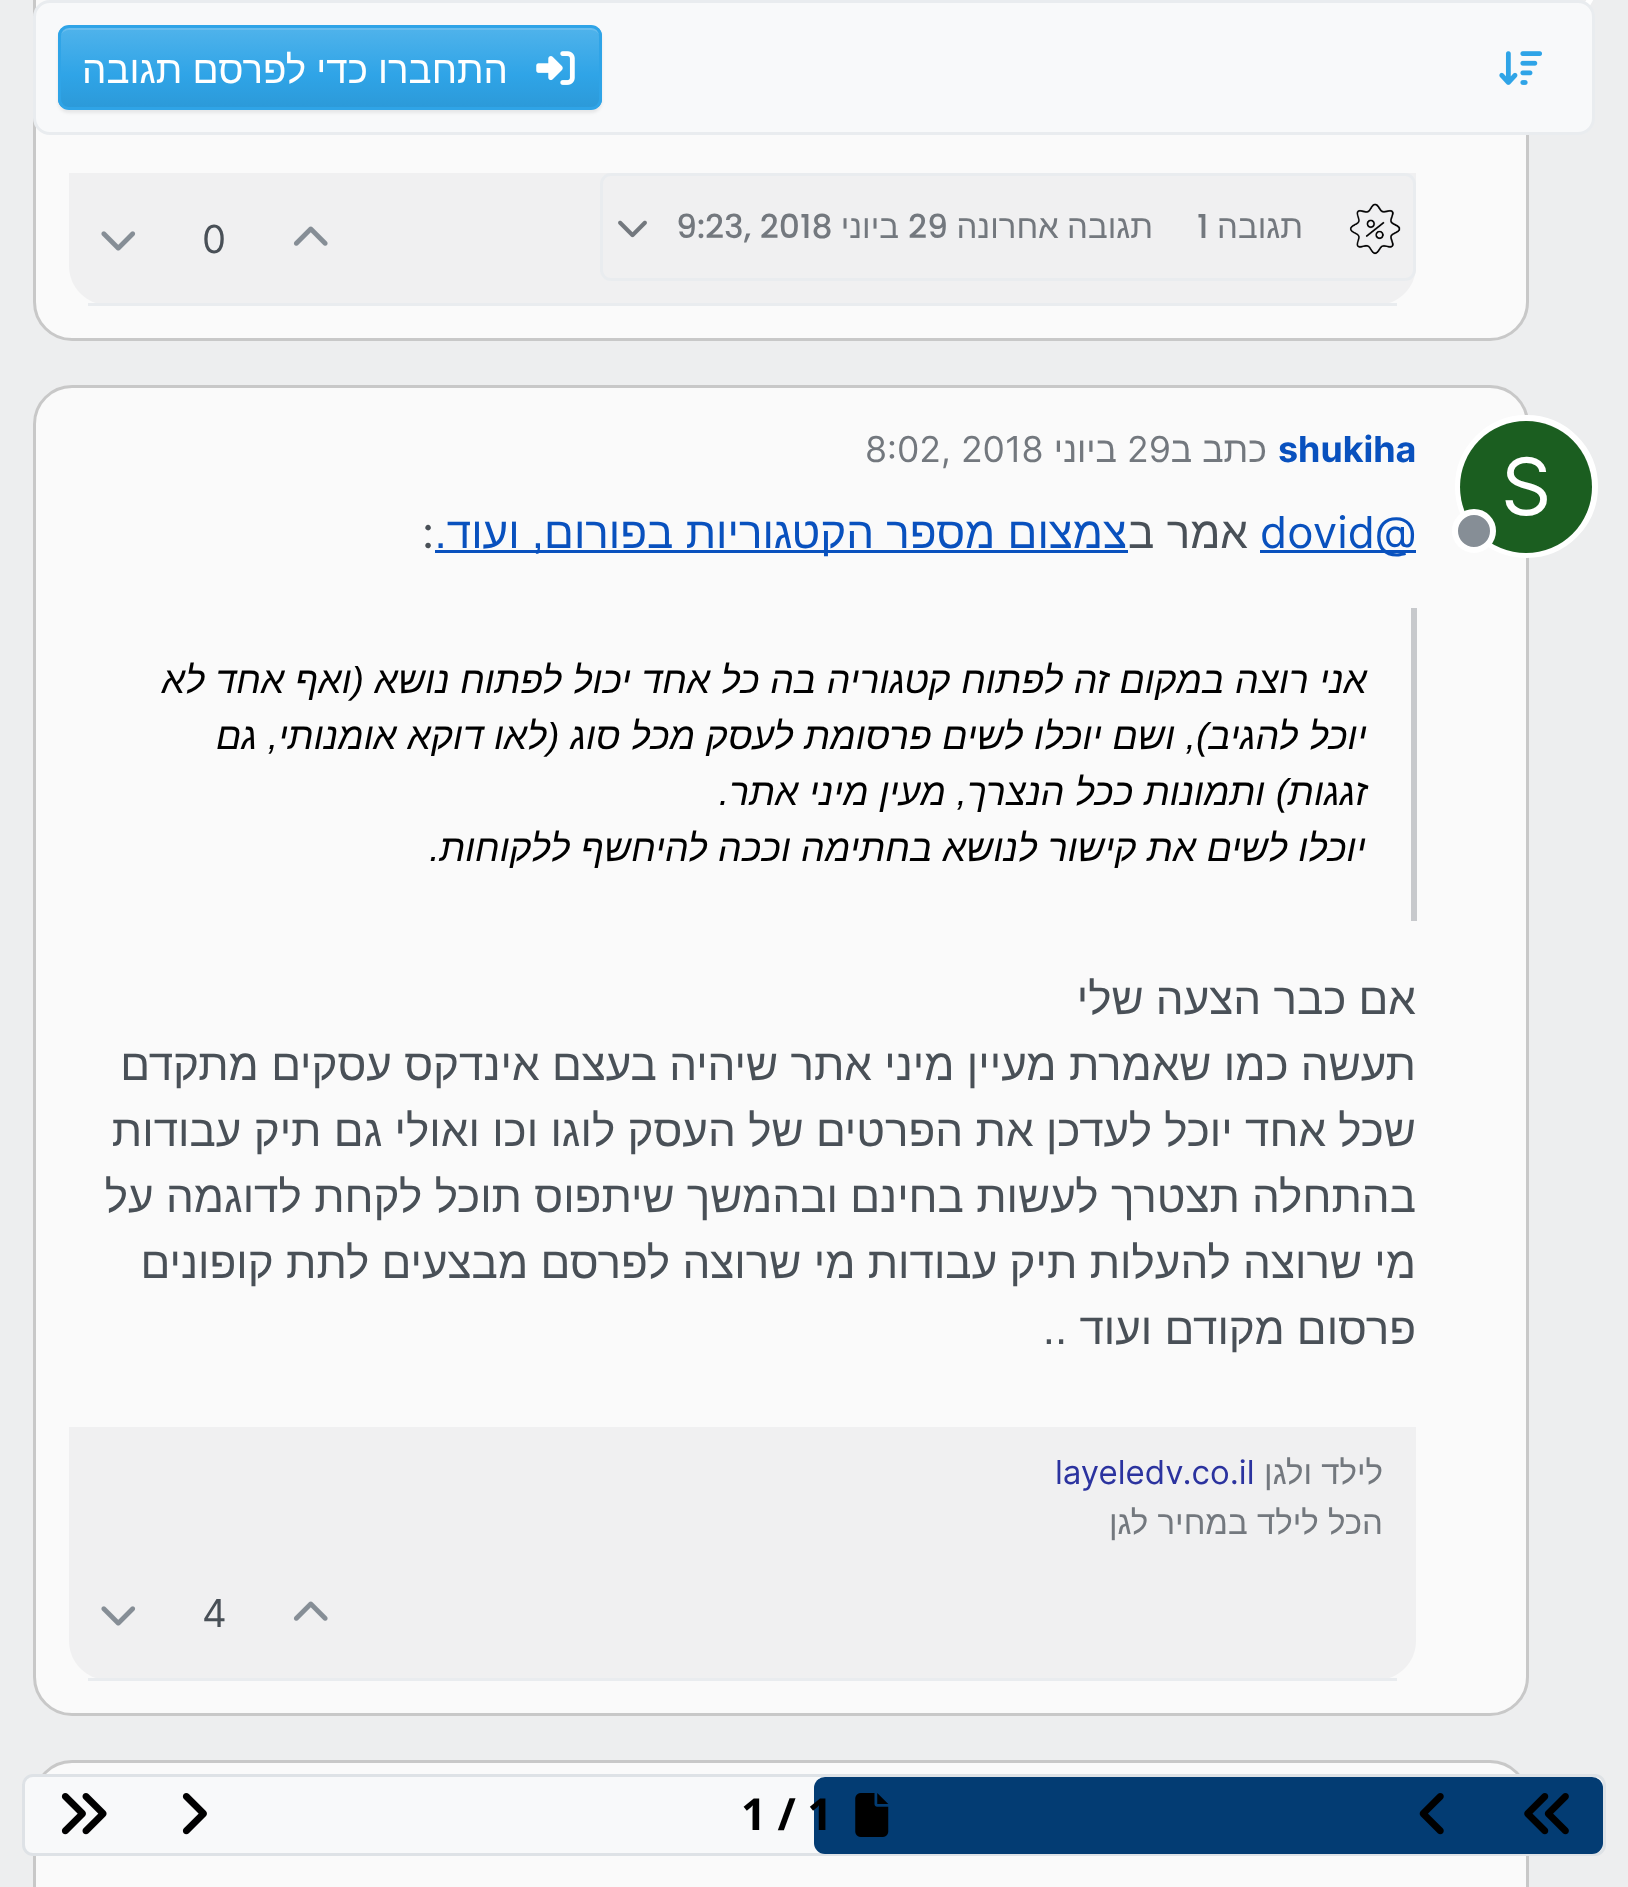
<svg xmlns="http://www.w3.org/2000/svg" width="1628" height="1887">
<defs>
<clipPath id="clip1"><rect x="58" y="25" width="544" height="85" rx="11"/></clipPath>
<linearGradient id="g1" gradientUnits="userSpaceOnUse" x1="330" y1="27" x2="330" y2="107"><stop offset="0" stop-color="#50b3eb"/><stop offset="0.6" stop-color="#2fa4e7"/><stop offset="1" stop-color="#2c9ad9"/></linearGradient>
</defs>
<rect width="100%" height="100%" fill="#edeeef"/>
<rect x="34.5" y="-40.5" width="1493" height="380" rx="37.5" fill="#fafafa" stroke="#c8c8c8" stroke-width="3"/>
<rect x="1458" y="-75" width="137" height="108" rx="68.5" fill="none" stroke="#fff" stroke-width="6"/>
<rect x="34.5" y="1.5" width="1559" height="132" rx="15.5" fill="#f8f9fa" stroke="#e9ecef" stroke-width="3"/>
<image x="1499" y="51" width="43" height="34" href="media/1.png"/>
<rect x="58" y="28" width="544" height="85" rx="11" fill="#00000012" filter="blur(1.5px)"/>
<g clip-path="url(#clip1)">
<rect x="58" y="28" width="544" height="79" fill="url(#g1)"/>
</g>
<path d="M69 30h522c5 0 9 4 9 8v-2c0-4-4-8-8-8h-523c-4 0-7 3-8 6c2-2 5-4 8-4z" fill="#ffffff26"/>
<rect x="59.5" y="26.5" width="541" height="82" rx="9.5" fill="none" stroke="#2fa4e7" stroke-width="3"/>
<image x="536" y="51" width="39" height="34" href="media/2.png"/>
<text x="508" y="83" word-spacing="-0.5" style="font-family:Liberation Sans;font-size:38.5px;direction:rtl;fill:#fff">התחברו כדי לפרסם תגובה</text>
<path d="M69 173h1347v93c0 21.5-17.5 39-39 39h-1269c-21.5 0-39-17.5-39-39z" fill="#f0f0f1"/>
<rect x="88" y="303" width="1309" height="3" fill="#e9ecef"/>
<rect x="601.5" y="174.5" width="813" height="105" rx="9.5" fill="none" stroke="#e9ecef" stroke-width="3"/>
<image x="1349" y="203" width="52" height="52" href="media/3.png"/>
<text x="1303" y="238" style="font-family:Liberation Sans;font-size:33px;direction:rtl;fill:#73787e">תגובה</text>
<text x="1197" y="238" style="font-family:Poppins;font-size:33px;font-weight:500;fill:#73787e">1</text>
<text x="1153" y="238" word-spacing="-1" style="font-family:Liberation Sans;font-size:33px;direction:rtl;fill:#73787e">תגובה אחרונה</text>
<text x="908" y="238" style="font-family:Poppins;font-size:33px;font-weight:500;fill:#73787e">29</text>
<text x="899" y="238" style="font-family:Liberation Sans;font-size:33px;direction:rtl;fill:#73787e">ביוני</text>
<text x="676" y="238" style="font-family:Poppins;font-size:33px;font-weight:500;fill:#73787e">9:23, 2018</text>
<image x="618" y="220" width="29" height="18" href="media/4.png"/>
<image x="293" y="226" width="35" height="20" href="media/5.png"/>
<text x="202" y="253" style="font-family:Inter;font-size:38.5px;fill:#495057">0</text>
<image x="101" y="231" width="35" height="20" href="media/6.png"/>
<rect x="34.5" y="386.5" width="1493" height="1328" rx="37.5" fill="#fafafa" stroke="#c8c8c8" stroke-width="3"/>
<circle cx="1526.5" cy="486.5" r="68.5" fill="none" stroke="#fff" stroke-width="6"/>
<circle cx="1526" cy="487" r="66" fill="#1b5e20"/>
<text x="1501" y="515" style="font-family:Inter;font-size:79px;fill:#fff">S</text>
<circle cx="1474" cy="531" r="19" fill="#868e96" stroke="#fff" stroke-width="6"/>
<text x="1278" y="462" style="font-family:Inter;font-size:35.75px;font-weight:bold;fill:#0951be">shukiha</text>
<text x="1267" y="462" style="font-family:Liberation Sans;font-size:35.75px;direction:rtl;fill:#73787e">כתב ב</text>
<text x="1127" y="462" style="font-family:Inter;font-size:35.75px;fill:#73787e">29</text>
<text x="1117" y="462" style="font-family:Liberation Sans;font-size:35.75px;direction:rtl;fill:#73787e">ביוני</text>
<text x="865" y="462" style="font-family:Inter;font-size:35.75px;fill:#73787e">8:02, 2018</text>
<rect x="1260" y="550" width="156" height="3" fill="#0951be"/>
<text x="1375" y="548" style="font-family:Inter;font-size:44px;fill:#0951be">@</text>
<text x="1260" y="548" style="font-family:Inter;font-size:44px;fill:#0951be">dovid</text>
<text x="1248" y="548" style="font-family:Liberation Sans;font-size:44px;direction:rtl;fill:#495057">אמר ב</text>
<rect x="435" y="550" width="693" height="3" fill="#0951be"/>
<text x="1127" y="548" style="font-family:Liberation Sans;font-size:44px;direction:rtl;fill:#0951be">צמצום מספר הקטגוריות בפורום, ועוד.</text>
<text x="422" y="548" style="font-family:Inter;font-size:44px;fill:#495057">:</text>
<rect x="1411" y="608" width="6" height="313" fill="#c7c9cc"/>
<text x="1367" y="693" word-spacing="0.2" style="font-family:Liberation Sans;font-size:37.4px;font-style:italic;direction:rtl;fill:#000">אני רוצה במקום זה לפתוח קטגוריה בה כל אחד יכול לפתוח נושא (ואף אחד לא</text>
<text x="1367" y="749" word-spacing="0.25" style="font-family:Liberation Sans;font-size:37.4px;font-style:italic;direction:rtl;fill:#000">יוכל להגיב), ושם יוכלו לשים פרסומת לעסק מכל סוג (לאו דוקא אומנותי, גם</text>
<text x="1367" y="805" word-spacing="0.25" style="font-family:Liberation Sans;font-size:37.4px;font-style:italic;direction:rtl;fill:#000">זגגות) ותמונות ככל הנצרך, מעין מיני אתר.</text>
<text x="1366" y="861" style="font-family:Liberation Sans;font-size:37.4px;font-style:italic;direction:rtl;fill:#000">יוכלו לשים את קישור לנושא בחתימה וככה להיחשף ללקוחות.</text>
<text x="1416" y="1014" style="font-family:Liberation Sans;font-size:44px;direction:rtl;fill:#495057">אם כבר הצעה שלי</text>
<text x="1416" y="1080" word-spacing="0.1" style="font-family:Liberation Sans;font-size:44px;direction:rtl;fill:#495057">תעשה כמו שאמרת מעיין מיני אתר שיהיה בעצם אינדקס עסקים מתקדם</text>
<text x="1416" y="1146" word-spacing="0.1" style="font-family:Liberation Sans;font-size:44px;direction:rtl;fill:#495057">שכל אחד יוכל לעדכן את הפרטים של העסק לוגו וכו ואולי גם תיק עבודות</text>
<text x="1416" y="1212" word-spacing="0.1" style="font-family:Liberation Sans;font-size:44px;direction:rtl;fill:#495057">בהתחלה תצטרך לעשות בחינם ובהמשך שיתפוס תוכל לקחת לדוגמה על</text>
<text x="1416" y="1278" word-spacing="0.1" style="font-family:Liberation Sans;font-size:44px;direction:rtl;fill:#495057">מי שרוצה להעלות תיק עבודות מי שרוצה לפרסם מבצעים לתת קופונים</text>
<text x="1416" y="1344" style="font-family:Liberation Sans;font-size:44px;direction:rtl;fill:#495057">פרסום מקודם ועוד ..</text>
<path d="M69 1427h1347v214c0 21.5-17.5 39-39 39h-1269c-21.5 0-39-17.5-39-39z" fill="#f0f0f1"/>
<rect x="88" y="1678" width="1309" height="3" fill="#e9ecef"/>
<text x="1383" y="1484" style="font-family:Liberation Sans;font-size:33px;direction:rtl;fill:#73787e">לילד ולגן</text>
<text x="1055" y="1484" style="font-family:Inter;font-size:33px;fill:#2b339f">layeledv.co.il</text>
<text x="1383" y="1534" style="font-family:Liberation Sans;font-size:33px;direction:rtl;fill:#73787e">הכל לילד במחיר לגן</text>
<image x="293" y="1601" width="35" height="20" href="media/5.png"/>
<text x="202" y="1627" style="font-family:Inter;font-size:38.5px;fill:#495057">4</text>
<image x="101" y="1606" width="35" height="20" href="media/6.png"/>
<rect x="34.5" y="1761.5" width="1493" height="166" rx="37.5" fill="#fafafa" stroke="#c8c8c8" stroke-width="3"/>
<rect x="23.5" y="1775.5" width="1581" height="79" rx="9.5" fill="#f8f9fa" stroke="#dee2e6" stroke-width="3"/>
<rect x="814" y="1777" width="789" height="77" rx="11" fill="#033c73"/>
<image x="1524" y="1793" width="45" height="42" href="media/7.png"/>
<image x="1419" y="1793" width="25" height="42" href="media/8.png"/>
<image x="855" y="1793" width="34" height="44" href="media/9.png"/>
<text x="741" y="1830" style="font-family:Noto Sans;font-size:44px;font-weight:bold;fill:#000">1 / 1</text>
<image x="182" y="1793" width="25" height="42" href="media/10.png"/>
<image x="61" y="1793" width="46" height="42" href="media/11.png"/>
</svg>
